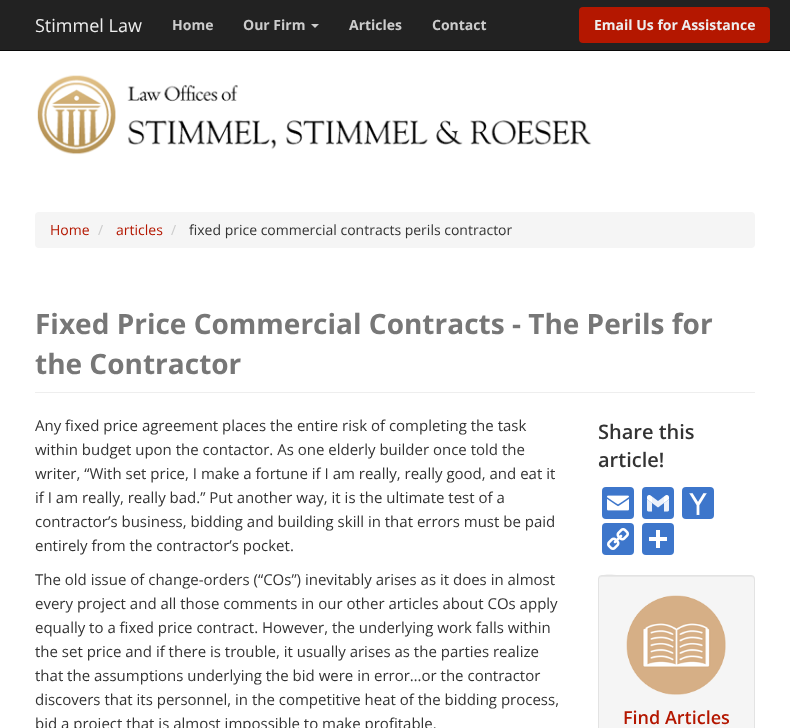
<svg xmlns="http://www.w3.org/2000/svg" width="790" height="728">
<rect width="100%" height="100%" fill="#fff"/>
<rect width="790" height="50" fill="#222"/>
<rect y="50" width="790" height="1" fill="#090909"/>
<text x="35" y="32" style="font-family:Open Sans;font-size:18px;fill:#eee">Stimmel Law</text>
<text x="172" y="30" style="font-family:Open Sans;font-size:14px;font-weight:bold;fill:#ccc">Home</text>
<text x="243" y="30" style="font-family:Open Sans;font-size:14px;font-weight:bold;fill:#ccc">Our Firm</text>
<path d="M311 24h8l-4 4z" fill="#ccc"/>
<text x="349" y="30" style="font-family:Open Sans;font-size:14px;font-weight:bold;fill:#ccc">Articles</text>
<text x="432" y="30" style="font-family:Open Sans;font-size:14px;font-weight:bold;fill:#ccc">Contact</text>
<rect x="579" y="7" width="191" height="36" rx="4" fill="#b41700"/>
<text x="594" y="30" style="font-family:Open Sans;font-size:14px;font-weight:bold;fill:#eee">Email Us for Assistance</text>
<image x="37" y="75" width="555" height="80" href="media/1.png"/>
<rect x="35" y="212" width="720" height="36" rx="4" fill="#f5f5f5"/>
<text x="50" y="235" style="font-family:Open Sans;font-size:14px;fill:#b41700">Home</text>
<text x="98" y="235" style="font-family:Open Sans;font-size:14px;fill:#ccc">/</text>
<text x="116" y="235" style="font-family:Open Sans;font-size:14px;fill:#b41700">articles</text>
<text x="171" y="235" style="font-family:Open Sans;font-size:14px;fill:#ccc">/</text>
<text x="189" y="235" style="font-family:Open Sans;font-size:14px;fill:#333">fixed price commercial contracts perils contractor</text>
<rect x="35" y="392" width="720" height="1" fill="#eee"/>
<text x="35" y="334" style="font-family:Open Sans;font-size:28px;font-weight:bold;fill:#777">Fixed Price Commercial Contracts - The Perils for</text>
<text x="35" y="374" style="font-family:Open Sans;font-size:28px;font-weight:bold;fill:#777">the Contractor</text>
<text x="35" y="431" style="font-family:Open Sans;font-size:15px;fill:#333">Any fixed price agreement places the entire risk of completing the task</text>
<text x="35" y="455" style="font-family:Open Sans;font-size:15px;fill:#333">within budget upon the contactor. As one elderly builder once told the</text>
<text x="35" y="479" style="font-family:Open Sans;font-size:15px;fill:#333">writer, “With set price, I make a fortune if I am really, really good, and eat it</text>
<text x="35" y="503" style="font-family:Open Sans;font-size:15px;fill:#333">if I am really, really bad.” Put another way, it is the ultimate test of a</text>
<text x="35" y="527" style="font-family:Open Sans;font-size:15px;fill:#333">contractor’s business, bidding and building skill in that errors must be paid</text>
<text x="35" y="551" style="font-family:Open Sans;font-size:15px;fill:#333">entirely from the contractor’s pocket.</text>
<text x="35" y="585" style="font-family:Open Sans;font-size:15px;fill:#333">The old issue of change-orders (“COs”) inevitably arises as it does in almost</text>
<text x="35" y="609" style="font-family:Open Sans;font-size:15px;fill:#333">every project and all those comments in our other articles about COs apply</text>
<text x="35" y="633" style="font-family:Open Sans;font-size:15px;fill:#333">equally to a fixed price contract. However, the underlying work falls within</text>
<text x="35" y="657" style="font-family:Open Sans;font-size:15px;fill:#333">the set price and if there is trouble, it usually arises as the parties realize</text>
<text x="35" y="681" style="font-family:Open Sans;font-size:15px;fill:#333">that the assumptions underlying the bid were in error…or the contractor</text>
<text x="35" y="705" style="font-family:Open Sans;font-size:15px;fill:#333">discovers that its personnel, in the competitive heat of the bidding process,</text>
<text x="35" y="729" style="font-family:Open Sans;font-size:15px;fill:#333">bid a project that is almost impossible to make profitable.</text>
<text x="598" y="439" style="font-family:Open Sans;font-size:20px;font-weight:600;fill:#333">Share this</text>
<text x="598" y="467" style="font-family:Open Sans;font-size:20px;font-weight:600;fill:#333">article!</text>
<rect x="602" y="487" width="32" height="32" rx="4" fill="#3d76cb"/>
<image x="607" y="495" width="22" height="16" href="media/2.png"/>
<rect x="642" y="487" width="32" height="32" rx="4" fill="#3d76cb"/>
<image x="647" y="495" width="22" height="17" href="media/3.png"/>
<rect x="682" y="487" width="32" height="32" rx="4" fill="#3d76cb"/>
<image x="689" y="493" width="18" height="23" href="media/4.png"/>
<rect x="602" y="523" width="32" height="32" rx="4" fill="#3d76cb"/>
<image x="607" y="528" width="22" height="22" href="media/5.png"/>
<rect x="642" y="523" width="32" height="32" rx="4" fill="#3d76cb"/>
<rect x="656" y="530" width="4" height="18" fill="#fff"/>
<rect x="649" y="537" width="18" height="4" fill="#fff"/>
<rect x="598" y="575" width="157" height="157" rx="4" fill="#f5f5f5"/>
<path d="M602 577h149c2 0 3 1 3 3c0-2 0-3-2-4h-125c-8 0-28-5-28 4c0-2 1-3 3-3z" fill="#e9e9e9"/>
<rect x="598.5" y="575.5" width="156" height="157" rx="3.5" fill="none" stroke="#e3e3e3"/>
<image x="626" y="595" width="100" height="100" href="media/6.png"/>
<text x="623" y="724" style="font-family:Open Sans;font-size:18px;font-weight:600;fill:#b41700">Find Articles</text>
</svg>
